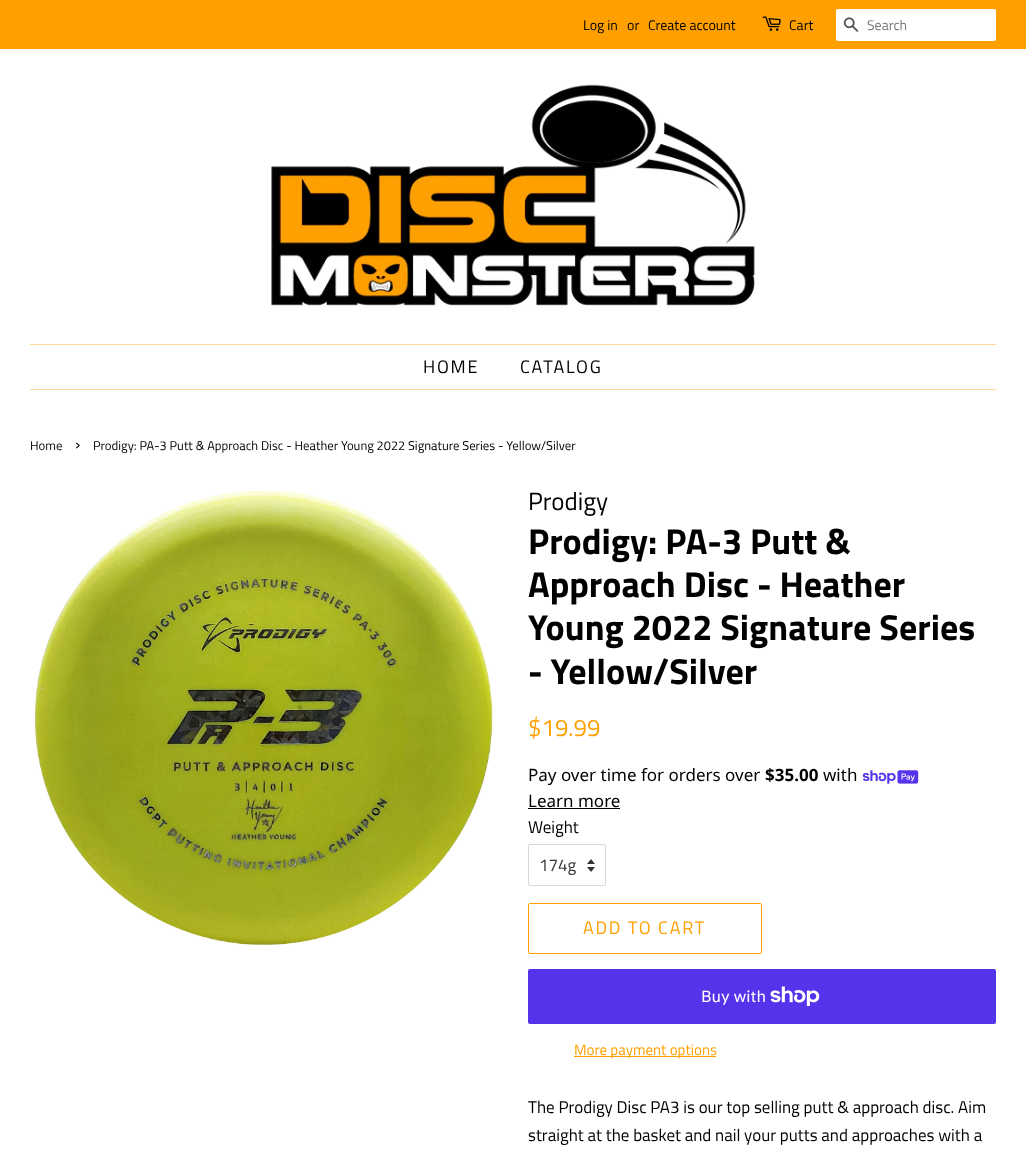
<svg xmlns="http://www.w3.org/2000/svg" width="1026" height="1160">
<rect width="100%" height="100%" fill="#fff"/>
<rect width="1026" height="49" fill="#ffa000"/>
<text x="583" y="30" style="font-family:Titillium Web;font-size:14px;fill:#000">Log in</text>
<text x="627" y="30" style="font-family:Titillium Web;font-size:14px;fill:#000">or</text>
<text x="648" y="30" style="font-family:Titillium Web;font-size:14px;fill:#000">Create account</text>
<image x="762" y="16" width="19" height="15" href="media/1.png"/>
<text x="789" y="30" style="font-family:Titillium Web;font-size:14px;fill:#000">Cart</text>
<rect x="836" y="9" width="160" height="32" rx="2" fill="#fff"/>
<image x="843" y="17" width="16" height="15" href="media/2.png"/>
<text x="867" y="30" style="font-family:Titillium Web;font-size:14px;fill:#757575">Search</text>
<image x="271" y="84" width="484" height="222" href="media/3.png"/>
<rect x="30" y="344" width="966" height="1" fill="#ffd897"/>
<rect x="30" y="389" width="966" height="1" fill="#ffd897"/>
<text x="423" y="373" style="font-family:Titillium Web;font-size:18px;letter-spacing:1.75px;fill:#000">HOME</text>
<text x="520" y="373" style="font-family:Titillium Web;font-size:18px;letter-spacing:1.75px;fill:#000">CATALOG</text>
<text x="30" y="450" style="font-family:Titillium Web;font-size:12.75px;fill:#000">Home</text>
<text x="75" y="450" style="font-family:Titillium Web;font-size:18px;fill:#000">›</text>
<text x="93" y="450" style="font-family:Titillium Web;font-size:12.75px;fill:#000">Prodigy: PA-3 Putt &amp; Approach Disc - Heather Young 2022 Signature Series - Yellow/Silver</text>
<image x="35" y="490" width="458" height="455" href="media/4.png"/>
<text x="528" y="510" style="font-family:Titillium Web;font-size:25px;fill:#000">Prodigy</text>
<text x="528" y="554" style="font-family:Titillium Web;font-size:36px;font-weight:bold;fill:#000">Prodigy: PA-3 Putt &amp;</text>
<text x="528" y="597" style="font-family:Titillium Web;font-size:36px;font-weight:bold;fill:#000">Approach Disc - Heather</text>
<text x="528" y="640" style="font-family:Titillium Web;font-size:36px;font-weight:bold;fill:#000">Young 2022 Signature Series</text>
<text x="528" y="684" style="font-family:Titillium Web;font-size:36px;font-weight:bold;fill:#000">- Yellow/Silver</text>
<text x="528" y="736" style="font-family:Titillium Web;font-size:24px;fill:#ffa000">$19.99</text>
<text x="528" y="781" style="font-family:Noto Sans;font-size:17px;fill:#000">Pay over time for orders over</text>
<text x="765" y="781" style="font-family:Noto Sans;font-size:17px;font-weight:bold;fill:#000">$35.00</text>
<text x="823" y="781" style="font-family:Noto Sans;font-size:17px;fill:#000">with</text>
<image x="862" y="770" width="57" height="14" href="media/5.png"/>
<text x="528" y="807" style="font-family:Noto Sans;font-size:17px;fill:#000">Learn more</text>
<rect x="528" y="808" width="92" height="1" fill="#000"/>
<text x="528" y="833" style="font-family:Titillium Web;font-size:17px;fill:#000">Weight</text>
<image x="587" y="859" width="8" height="13" href="media/6.png"/>
<rect x="528.5" y="844.5" width="77" height="41" rx="1.5" fill="none" stroke="#d9d9d9"/>
<text x="539" y="871" style="font-family:Titillium Web;font-size:17px;fill:#333">174g</text>
<rect x="528.5" y="903.5" width="233" height="50" rx="1.5" fill="none" stroke="#ffa000"/>
<text x="583" y="934" style="font-family:Titillium Web;font-size:18px;letter-spacing:1.75px;fill:#ffa000">ADD TO CART</text>
<rect x="528" y="969" width="468" height="55" rx="2" fill="#5433eb"/>
<text x="701" y="1002" style="font-family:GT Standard;font-size:16px;fill:#fff">Buy with</text>
<image x="770" y="986" width="50" height="20" href="media/7.png"/>
<rect x="574" y="1056" width="142" height="1" fill="#ffa000"/>
<text x="574" y="1055" style="font-family:Titillium Web;font-size:15px;fill:#ffa000">More payment options</text>
<text x="528" y="1113" style="font-family:Titillium Web;font-size:17px;fill:#000">The Prodigy Disc PA3 is our top selling putt &amp; approach disc. Aim</text>
<text x="528" y="1141" style="font-family:Titillium Web;font-size:17px;fill:#000">straight at the basket and nail your putts and approaches with a</text>
</svg>
